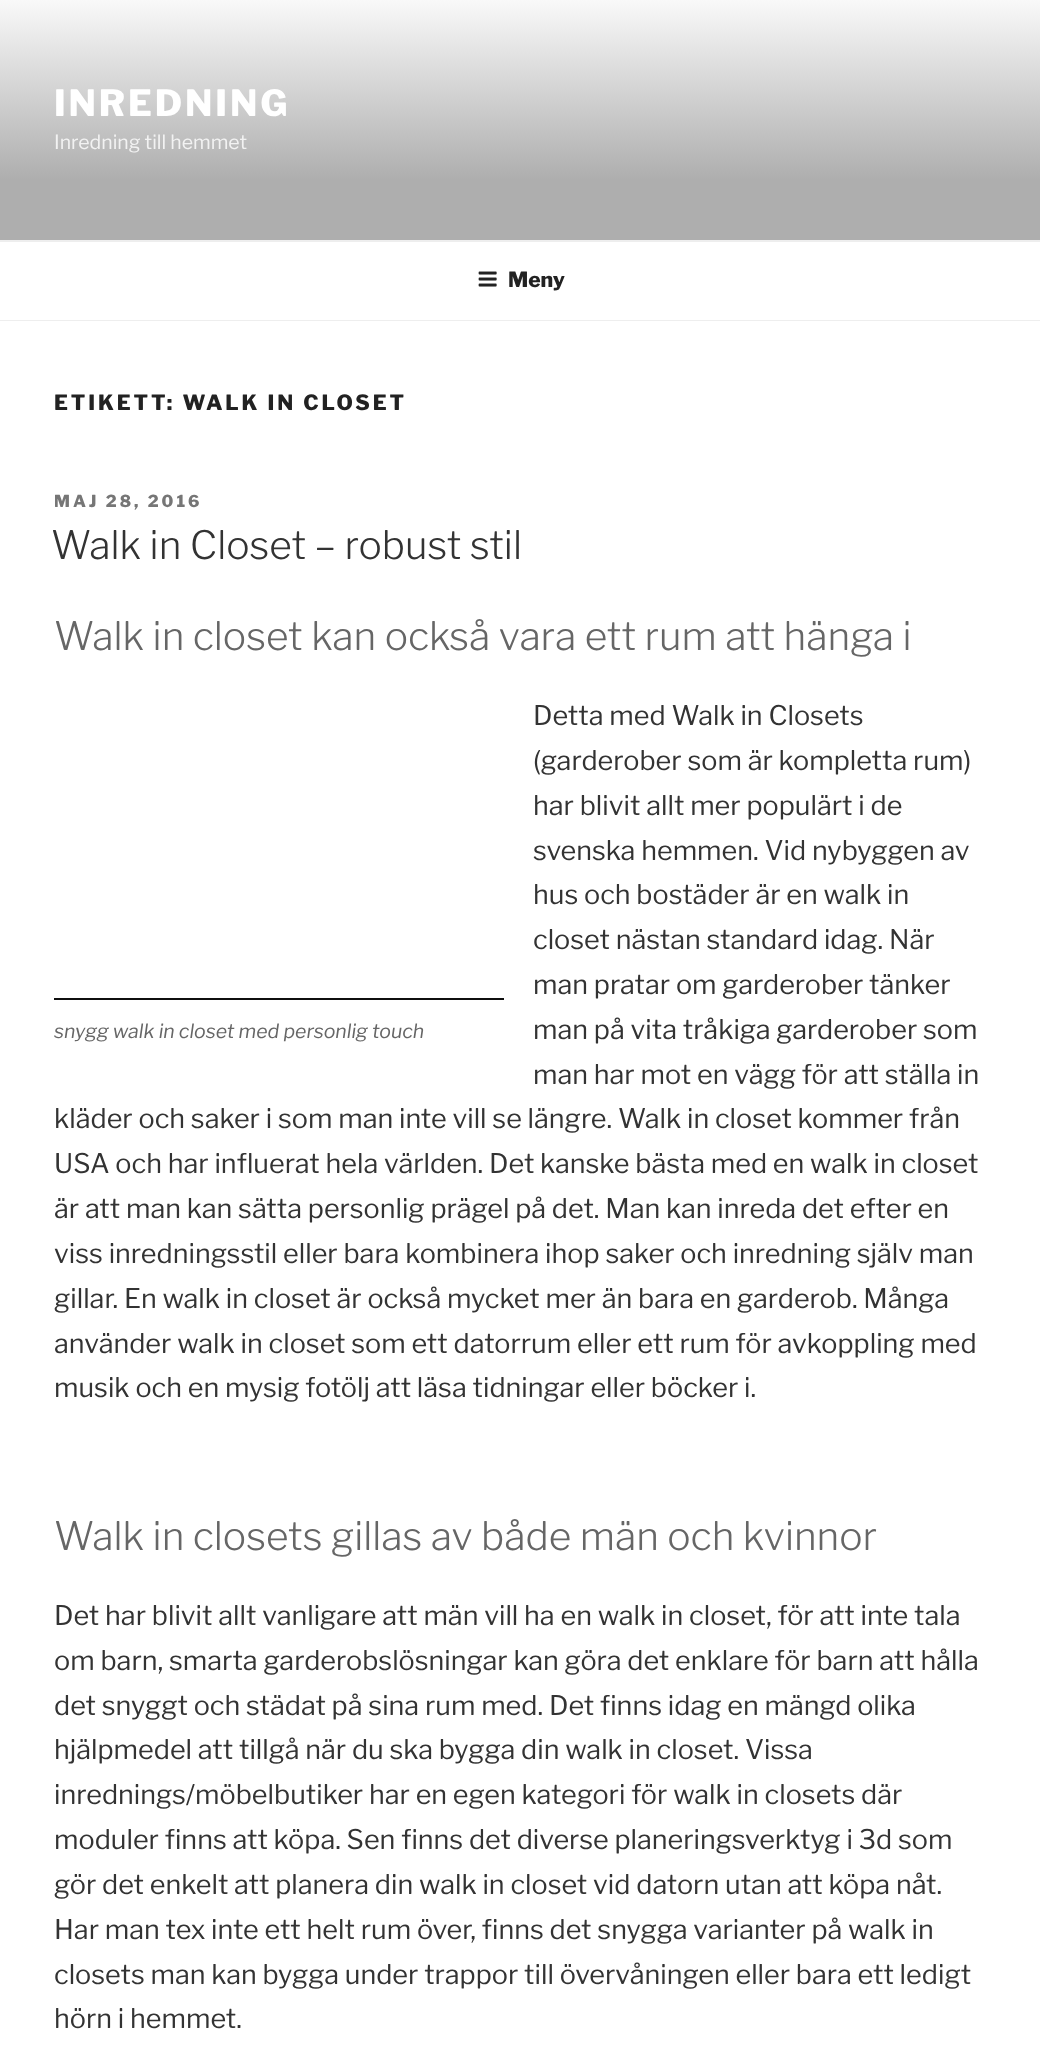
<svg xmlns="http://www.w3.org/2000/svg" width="1040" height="2065">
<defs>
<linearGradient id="g1" gradientUnits="userSpaceOnUse" x1="521" y1="0" x2="521" y2="240"><stop offset="0" stop-color="#f9f9f9"/><stop offset="0.75" stop-color="#aeaeae"/><stop offset="1" stop-color="#aeaeae"/></linearGradient>
</defs>
<rect width="100%" height="100%" fill="#fff"/>
<rect width="1040" height="240" fill="url(#g1)"/>
<text x="54" y="116" style="font-family:Libre Franklin;font-size:36px;font-weight:800;letter-spacing:2.9px;fill:#fff">INREDNING</text>
<text x="54" y="149" style="font-family:Libre Franklin;font-size:19.5px;fill:#f2f2f2">Inredning till hemmet</text>
<rect y="240" width="1040" height="2" fill="#eee"/>
<rect y="320" width="1040" height="1" fill="#eee"/>
<image x="478" y="271" width="19" height="16" href="media/1.png"/>
<text x="508" y="287" style="font-family:Libre Franklin;font-size:21px;font-weight:800;fill:#222">Meny</text>
<text x="54" y="410" style="font-family:Libre Franklin;font-size:21px;font-weight:800;letter-spacing:2.9px;fill:#222">ETIKETT: WALK IN CLOSET</text>
<text x="54" y="507" style="font-family:Libre Franklin;font-size:16.5px;font-weight:800;letter-spacing:3px;fill:#767676">MAJ 28, 2016</text>
<text x="51" y="559" style="font-family:Libre Franklin;font-size:39px;font-weight:300;fill:#333">Walk in Closet – robust stil</text>
<text x="54" y="650" style="font-family:Libre Franklin;font-size:39px;font-weight:300;fill:#666">Walk in closet kan också vara ett rum att hänga i</text>
<text x="533" y="725" style="font-family:Libre Franklin;font-size:27px;fill:#333">Detta med Walk in Closets</text>
<text x="533" y="770" style="font-family:Libre Franklin;font-size:27px;fill:#333">(garderober som är kompletta rum)</text>
<text x="533" y="815" style="font-family:Libre Franklin;font-size:27px;fill:#333">har blivit allt mer populärt i de</text>
<text x="533" y="860" style="font-family:Libre Franklin;font-size:27px;fill:#333">svenska hemmen. Vid nybyggen av</text>
<text x="533" y="904" style="font-family:Libre Franklin;font-size:27px;fill:#333">hus och bostäder är en walk in</text>
<text x="533" y="949" style="font-family:Libre Franklin;font-size:27px;fill:#333">closet nästan standard idag. När</text>
<text x="533" y="994" style="font-family:Libre Franklin;font-size:27px;fill:#333">man pratar om garderober tänker</text>
<text x="533" y="1039" style="font-family:Libre Franklin;font-size:27px;fill:#333">man på vita tråkiga garderober som</text>
<text x="533" y="1084" style="font-family:Libre Franklin;font-size:27px;fill:#333">man har mot en vägg för att ställa in</text>
<text x="54" y="1128" style="font-family:Libre Franklin;font-size:27px;fill:#333">kläder och saker i som man inte vill se längre. Walk in closet kommer från</text>
<text x="54" y="1173" style="font-family:Libre Franklin;font-size:27px;fill:#333">USA och har influerat hela världen. Det kanske bästa med en walk in closet</text>
<text x="54" y="1218" style="font-family:Libre Franklin;font-size:27px;fill:#333">är att man kan sätta personlig prägel på det. Man kan inreda det efter en</text>
<text x="54" y="1263" style="font-family:Libre Franklin;font-size:27px;fill:#333">viss inredningsstil eller bara kombinera ihop saker och inredning själv man</text>
<text x="54" y="1308" style="font-family:Libre Franklin;font-size:27px;fill:#333">gillar. En walk in closet är också mycket mer än bara en garderob. Många</text>
<text x="54" y="1353" style="font-family:Libre Franklin;font-size:27px;fill:#333">använder walk in closet som ett datorrum eller ett rum för avkoppling med</text>
<text x="54" y="1397" style="font-family:Libre Franklin;font-size:27px;fill:#333">musik och en mysig fotölj att läsa tidningar eller böcker i.</text>
<rect x="54" y="998" width="450" height="2" fill="#0f0f0f"/>
<text x="54" y="1038" style="font-family:Libre Franklin;font-size:19.5px;font-style:italic;fill:#666">snygg walk in closet med personlig touch</text>
<text x="54" y="1550" style="font-family:Libre Franklin;font-size:39px;font-weight:300;fill:#666">Walk in closets gillas av både män och kvinnor</text>
<text x="54" y="1625" style="font-family:Libre Franklin;font-size:27px;fill:#333">Det har blivit allt vanligare att män vill ha en walk in closet, för att inte tala</text>
<text x="54" y="1670" style="font-family:Libre Franklin;font-size:27px;fill:#333">om barn, smarta garderobslösningar kan göra det enklare för barn att hålla</text>
<text x="54" y="1715" style="font-family:Libre Franklin;font-size:27px;fill:#333">det snyggt och städat på sina rum med. Det finns idag en mängd olika</text>
<text x="54" y="1759" style="font-family:Libre Franklin;font-size:27px;fill:#333">hjälpmedel att tillgå när du ska bygga din walk in closet. Vissa</text>
<text x="54" y="1804" style="font-family:Libre Franklin;font-size:27px;fill:#333">inrednings/möbelbutiker har en egen kategori för walk in closets där</text>
<text x="54" y="1849" style="font-family:Libre Franklin;font-size:27px;fill:#333">moduler finns att köpa. Sen finns det diverse planeringsverktyg i 3d som</text>
<text x="54" y="1894" style="font-family:Libre Franklin;font-size:27px;fill:#333">gör det enkelt att planera din walk in closet vid datorn utan att köpa nåt.</text>
<text x="54" y="1939" style="font-family:Libre Franklin;font-size:27px;fill:#333">Har man tex inte ett helt rum över, finns det snygga varianter på walk in</text>
<text x="54" y="1984" style="font-family:Libre Franklin;font-size:27px;fill:#333">closets man kan bygga under trappor till övervåningen eller bara ett ledigt</text>
<text x="54" y="2028" style="font-family:Libre Franklin;font-size:27px;fill:#333">hörn i hemmet.</text>
</svg>
